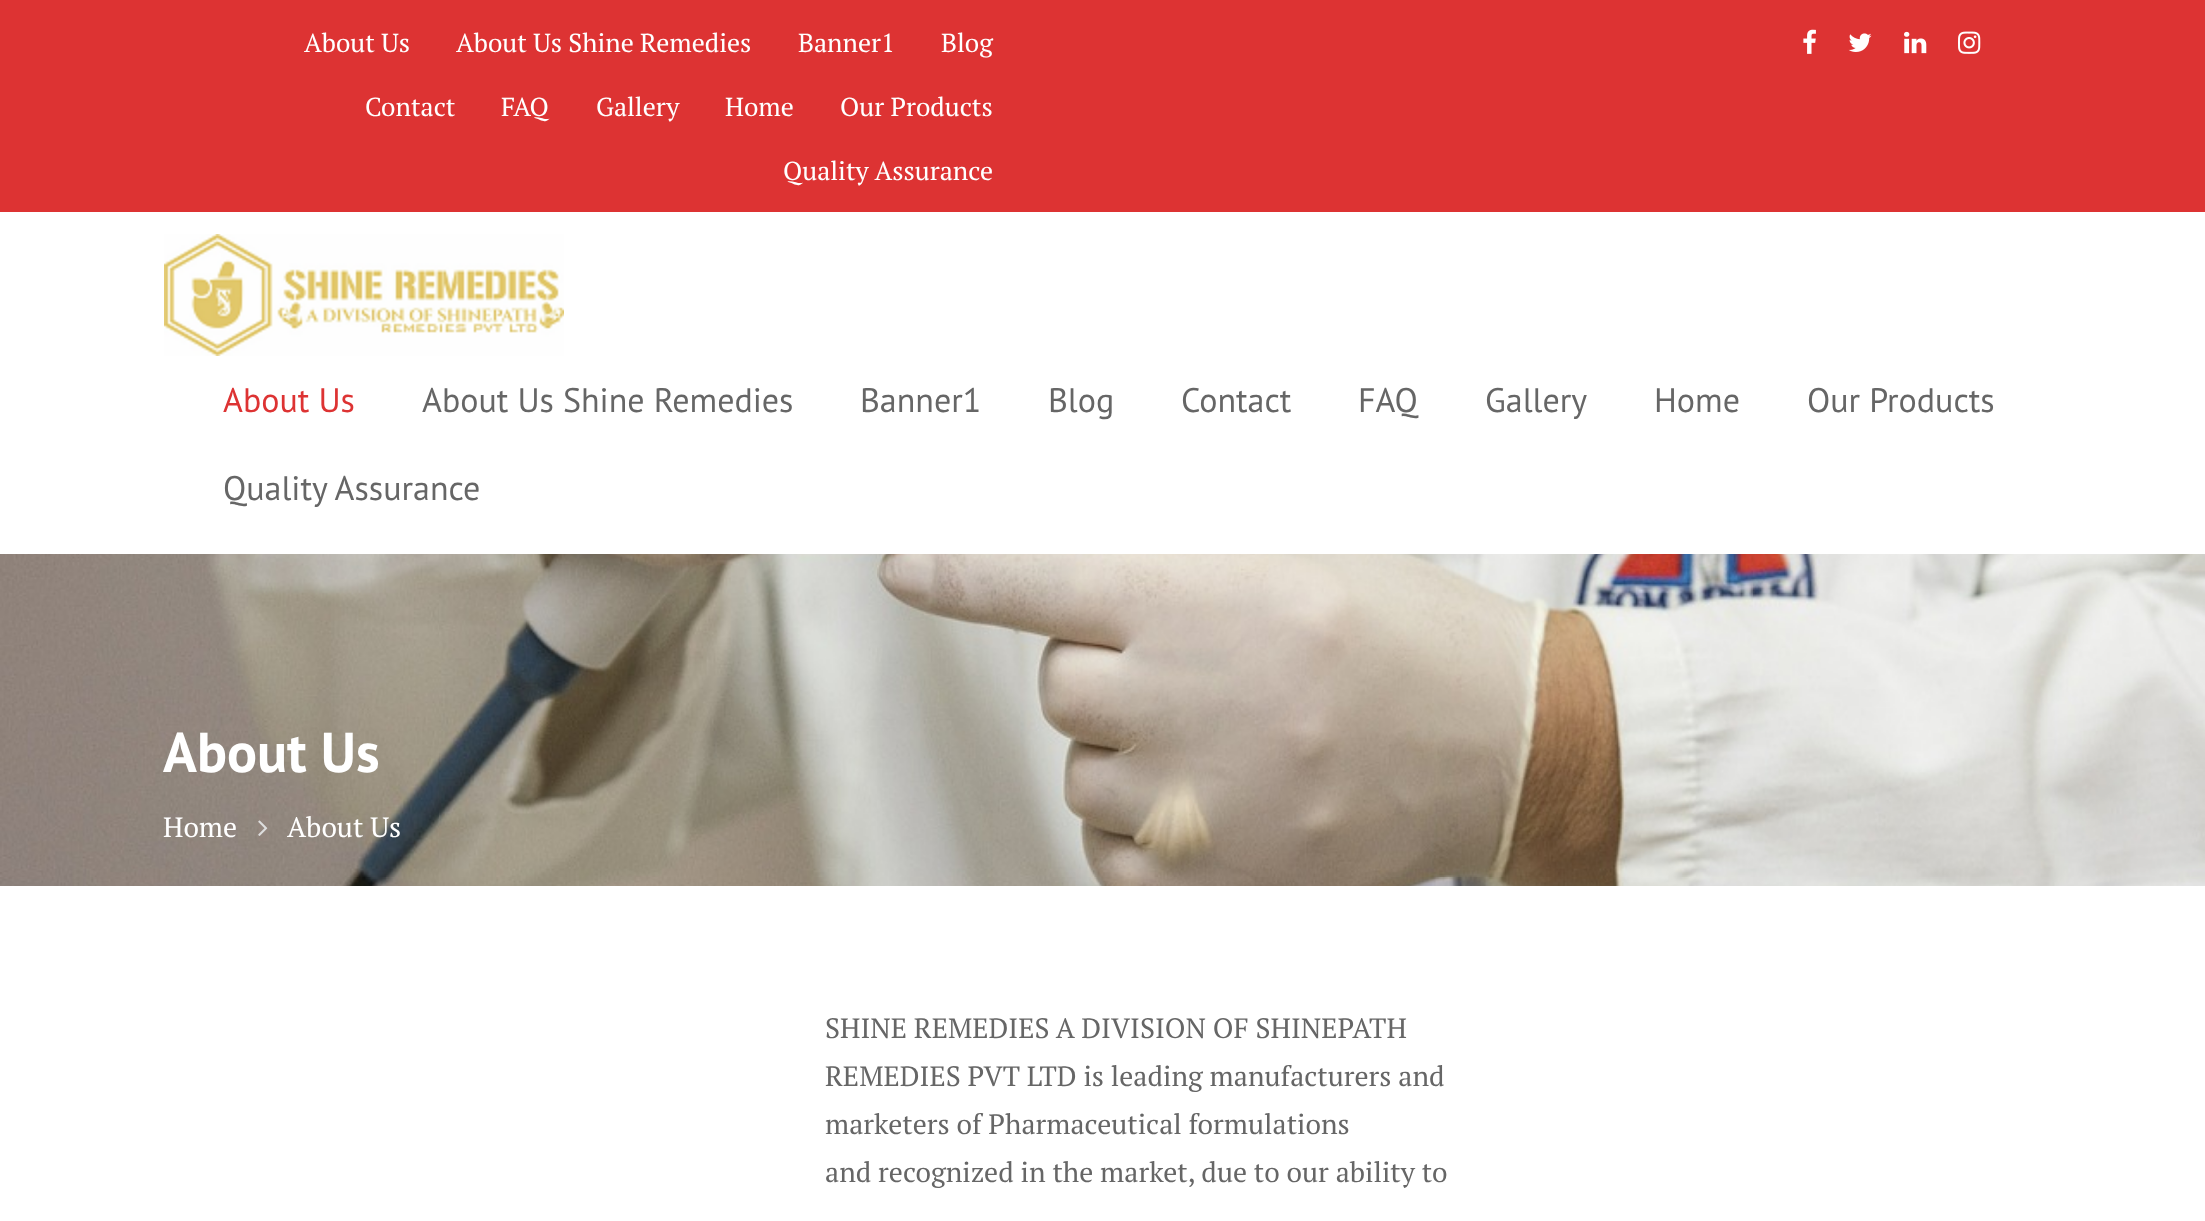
<svg xmlns="http://www.w3.org/2000/svg" width="2205" height="1221">
<rect width="100%" height="100%" fill="#fff"/>
<rect width="2205" height="212" fill="#d33"/>
<text x="304" y="52" style="font-family:PT Serif;font-size:26px;fill:#fff">About Us</text>
<text x="456" y="52" style="font-family:PT Serif;font-size:26px;fill:#fff">About Us Shine Remedies</text>
<text x="798" y="52" style="font-family:PT Serif;font-size:26px;fill:#fff">Banner1</text>
<text x="941" y="52" style="font-family:PT Serif;font-size:26px;fill:#fff">Blog</text>
<text x="365" y="116" style="font-family:PT Serif;font-size:26px;fill:#fff">Contact</text>
<text x="501" y="116" style="font-family:PT Serif;font-size:26px;fill:#fff">FAQ</text>
<text x="596" y="116" style="font-family:PT Serif;font-size:26px;fill:#fff">Gallery</text>
<text x="725" y="116" style="font-family:PT Serif;font-size:26px;fill:#fff">Home</text>
<text x="840" y="116" style="font-family:PT Serif;font-size:26px;fill:#fff">Our Products</text>
<text x="783" y="180" style="font-family:PT Serif;font-size:26px;fill:#fff">Quality Assurance</text>
<image x="1803" y="29" width="13" height="25" href="media/1.png"/>
<image x="1848" y="33" width="24" height="19" href="media/2.png"/>
<image x="1904" y="31" width="23" height="23" href="media/3.png"/>
<image x="1958" y="31" width="23" height="23" href="media/4.png"/>
<image x="164" y="234" width="400" height="122" href="media/5.png"/>
<text x="223" y="412" style="font-family:PT Sans;font-size:34px;fill:#d33">About Us</text>
<text x="422" y="412" style="font-family:PT Sans;font-size:34px;fill:#666">About Us Shine Remedies</text>
<text x="860" y="412" style="font-family:PT Sans;font-size:34px;fill:#666">Banner1</text>
<text x="1048" y="412" style="font-family:PT Sans;font-size:34px;fill:#666">Blog</text>
<text x="1181" y="412" style="font-family:PT Sans;font-size:34px;fill:#666">Contact</text>
<text x="1358" y="412" style="font-family:PT Sans;font-size:34px;fill:#666">FAQ</text>
<text x="1485" y="412" style="font-family:PT Sans;font-size:34px;fill:#666">Gallery</text>
<text x="1654" y="412" style="font-family:PT Sans;font-size:34px;fill:#666">Home</text>
<text x="1807" y="412" style="font-family:PT Sans;font-size:34px;fill:#666">Our Products</text>
<text x="223" y="500" style="font-family:PT Sans;font-size:34px;fill:#666">Quality Assurance</text>
<image x="0" y="554" width="2205" height="332" href="media/6.png"/>
<text x="163" y="772" style="font-family:PT Sans;font-size:56px;font-weight:bold;fill:#fff">About Us</text>
<text x="163" y="837" style="font-family:PT Serif;font-size:28px;fill:#fff">Home</text>
<image x="258" y="820" width="10" height="16" href="media/7.png"/>
<text x="287" y="837" style="font-family:PT Serif;font-size:28px;fill:#fff">About Us</text>
<text x="825" y="1038" style="font-family:PT Serif;font-size:28px;fill:#666">SHINE REMEDIES A DIVISION OF SHINEPATH</text>
<text x="825" y="1086" style="font-family:PT Serif;font-size:28px;fill:#666">REMEDIES PVT LTD is leading manufacturers and</text>
<text x="825" y="1134" style="font-family:PT Serif;font-size:28px;fill:#666">marketers of Pharmaceutical formulations</text>
<text x="825" y="1182" style="font-family:PT Serif;font-size:28px;fill:#666">and recognized in the market, due to our ability to</text>
</svg>
